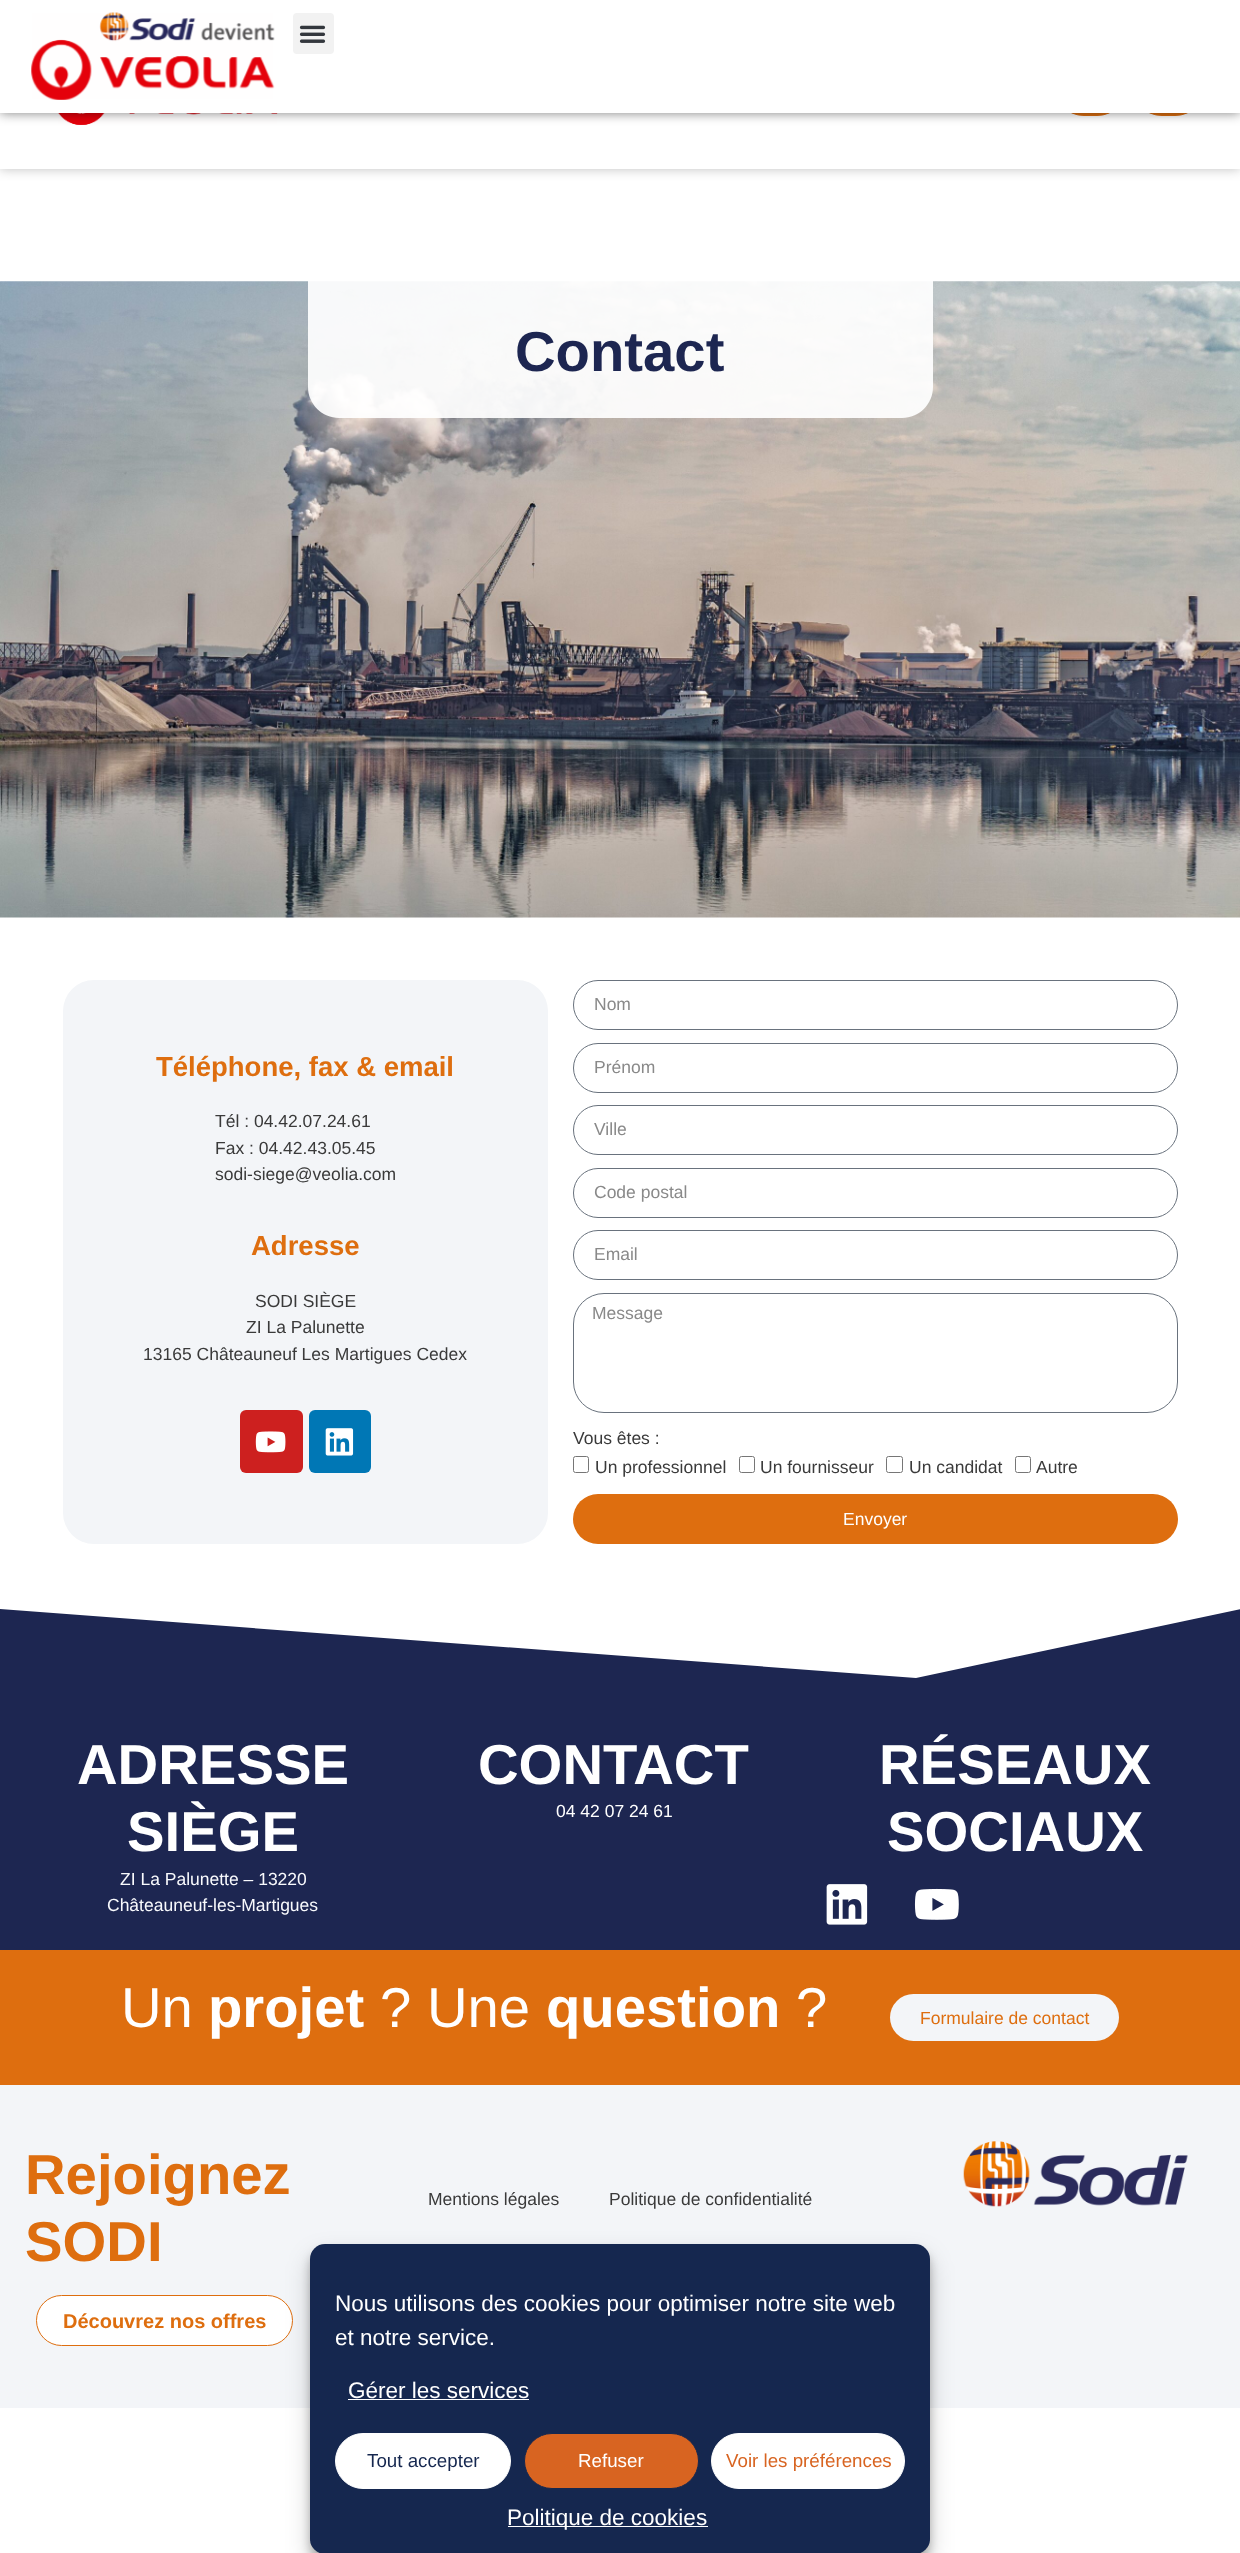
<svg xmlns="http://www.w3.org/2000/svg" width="1240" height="2553">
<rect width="100%" height="100%" fill="#fff"/>
<rect width="1240" height="169" fill="#00000040" filter="blur(6px)"/>
<rect y="113" width="1240" height="56" fill="#fff"/>
<rect x="1053.5" y="54.5" width="74" height="61" rx="30.5" fill="#de6e0f" stroke="#de6e0f"/>
<rect x="1131.5" y="54.5" width="74" height="61" rx="30.5" fill="#de6e0f" stroke="#de6e0f"/>
<image x="58" y="113" width="220" height="12" href="media/1.png"/>
<rect width="1240" height="113" fill="#00000080" filter="blur(6px)"/>
<rect width="1240" height="113" fill="#fff"/>
<image x="31" y="12" width="244" height="88" href="media/2.png"/>
<rect x="293" y="13" width="41" height="41" rx="4" fill="#f2f2f2"/>
<image x="299" y="25" width="27" height="18" href="media/3.png"/>
<image x="0" y="281" width="1240" height="637" href="media/4.png"/>
<path d="M308 281h625v106c0 17-14 31-31 31h-563c-17 0-31-14-31-31z" fill="#ffffffeb"/>
<text x="515" y="371" style="font-family:Liberation Sans;font-size:56.25px;font-weight:bold;fill:#1d2651">Contact</text>
<rect x="63" y="980" width="485" height="564" rx="31" fill="#f3f5f8"/>
<text x="156" y="1076" style="font-family:Liberation Sans;font-size:27.5px;font-weight:bold;fill:#de6e0f">Téléphone, fax &amp; email</text>
<text x="215" y="1127" style="font-family:Liberation Sans;font-size:17.5px;fill:#3a3a3a">Tél : 04.42.07.24.61</text>
<text x="215" y="1154" style="font-family:Liberation Sans;font-size:17.5px;fill:#3a3a3a">Fax : 04.42.43.05.45</text>
<text x="215" y="1180" style="font-family:Liberation Sans;font-size:17.5px;fill:#3a3a3a">sodi-siege@veolia.com</text>
<text x="251" y="1255" style="font-family:Liberation Sans;font-size:27.5px;font-weight:bold;fill:#de6e0f">Adresse</text>
<text x="255" y="1307" style="font-family:Liberation Sans;font-size:17.5px;fill:#3a3a3a">SODI SIÈGE</text>
<text x="246" y="1333" style="font-family:Liberation Sans;font-size:17.5px;fill:#3a3a3a">ZI La Palunette</text>
<text x="143" y="1360" style="font-family:Liberation Sans;font-size:17.5px;fill:#3a3a3a">13165 Châteauneuf Les Martigues Cedex</text>
<rect x="240" y="1410" width="63" height="63" rx="6" fill="#cd201f"/>
<image x="255" y="1431" width="31" height="22" href="media/5.png"/>
<rect x="309" y="1410" width="62" height="63" rx="6" fill="#0077b5"/>
<image x="325" y="1428" width="29" height="28" href="media/6.png"/>
<rect x="573.5" y="980.5" width="604" height="49" rx="24.5" fill="none" stroke="#69727d"/>
<text x="594" y="1010" style="font-family:Liberation Sans;font-size:17.5px;fill:#898989">Nom</text>
<rect x="573.5" y="1043.5" width="604" height="49" rx="24.5" fill="none" stroke="#69727d"/>
<text x="594" y="1073" style="font-family:Liberation Sans;font-size:17.5px;fill:#898989">Prénom</text>
<rect x="573.5" y="1105.5" width="604" height="49" rx="24.5" fill="none" stroke="#69727d"/>
<text x="594" y="1135" style="font-family:Liberation Sans;font-size:17.5px;fill:#898989">Ville</text>
<rect x="573.5" y="1168.5" width="604" height="49" rx="24.5" fill="none" stroke="#69727d"/>
<text x="594" y="1198" style="font-family:Liberation Sans;font-size:17.5px;fill:#898989">Code postal</text>
<rect x="573.5" y="1230.5" width="604" height="49" rx="24.5" fill="none" stroke="#69727d"/>
<text x="594" y="1260" style="font-family:Liberation Sans;font-size:17.5px;fill:#898989">Email</text>
<rect x="573.5" y="1293.5" width="604" height="119" rx="30.5" fill="none" stroke="#69727d"/>
<text x="592" y="1319" style="font-family:Liberation Sans;font-size:17.5px;fill:#898989">Message</text>
<text x="573" y="1444" style="font-family:Liberation Sans;font-size:17.5px;fill:#3a3a3a">Vous êtes :</text>
<rect x="573.5" y="1456.5" width="15" height="16" rx="2" fill="none" stroke="#767676"/>
<text x="595" y="1473" style="font-family:Liberation Sans;font-size:17.5px;fill:#3a3a3a">Un professionnel</text>
<rect x="739.5" y="1456.5" width="15" height="16" rx="2" fill="none" stroke="#767676"/>
<text x="760" y="1473" style="font-family:Liberation Sans;font-size:17.5px;fill:#3a3a3a">Un fournisseur</text>
<rect x="886.5" y="1456.5" width="16" height="16" rx="2" fill="none" stroke="#767676"/>
<text x="909" y="1473" style="font-family:Liberation Sans;font-size:17.5px;fill:#3a3a3a">Un candidat</text>
<rect x="1015.5" y="1456.5" width="15" height="16" rx="2" fill="none" stroke="#767676"/>
<text x="1036" y="1473" style="font-family:Liberation Sans;font-size:17.5px;fill:#3a3a3a">Autre</text>
<rect x="573" y="1494" width="605" height="50" rx="25" fill="#de6e0f"/>
<text x="843" y="1525" style="font-family:Liberation Sans;font-size:17.5px;fill:#fff">Envoyer</text>
<rect y="1609" width="1240" height="341" fill="#1d2651"/>
<path d="M916 1678l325-69v-4h-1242v4z" fill="#fff"/>
<text x="77" y="1784" style="font-family:Liberation Sans;font-size:56.25px;font-weight:bold;fill:#fff">ADRESSE</text>
<text x="127" y="1851" style="font-family:Liberation Sans;font-size:56.25px;font-weight:bold;fill:#fff">SIÈGE</text>
<text x="120" y="1885" style="font-family:Liberation Sans;font-size:17.5px;fill:#f9fafd">ZI La Palunette – 13220</text>
<text x="107" y="1911" style="font-family:Liberation Sans;font-size:17.5px;fill:#f9fafd">Châteauneuf-les-Martigues</text>
<text x="478" y="1784" style="font-family:Liberation Sans;font-size:56.25px;font-weight:bold;fill:#fff">CONTACT</text>
<text x="556" y="1817" style="font-family:Liberation Sans;font-size:17.5px;fill:#fff">04 42 07 24 61</text>
<text x="879" y="1784" style="font-family:Liberation Sans;font-size:56.25px;font-weight:bold;fill:#fff">RÉSEAUX</text>
<text x="887" y="1851" style="font-family:Liberation Sans;font-size:56.25px;font-weight:bold;fill:#fff">SOCIAUX</text>
<image x="826" y="1884" width="42" height="41" href="media/7.png"/>
<image x="914" y="1888" width="45" height="32" href="media/8.png"/>
<rect y="1950" width="1240" height="135" fill="#de6e0f"/>
<text x="121" y="2027" style="font-family:Liberation Sans;font-size:56.25px;fill:#fff">Un</text>
<text x="208" y="2027" style="font-family:Liberation Sans;font-size:56.25px;font-weight:bold;fill:#fff">projet</text>
<text x="380" y="2027" style="font-family:Liberation Sans;font-size:56.25px;fill:#fff">? Une</text>
<text x="546" y="2027" style="font-family:Liberation Sans;font-size:56.25px;font-weight:bold;fill:#fff">question</text>
<text x="796" y="2027" style="font-family:Liberation Sans;font-size:56.25px;fill:#fff">?</text>
<rect x="890" y="1994" width="229" height="47" rx="23.5" fill="#f3f5f8"/>
<text x="920" y="2024" style="font-family:Liberation Sans;font-size:17.5px;fill:#de6e0f">Formulaire de contact</text>
<rect y="2085" width="1240" height="323" fill="#f3f5f8"/>
<text x="25" y="2194" style="font-family:Liberation Sans;font-size:56.25px;font-weight:bold;fill:#de6e0f">Rejoignez</text>
<text x="25" y="2261" style="font-family:Liberation Sans;font-size:56.25px;font-weight:bold;fill:#de6e0f">SODI</text>
<rect x="36.5" y="2295.5" width="256" height="50" rx="25" fill="#fff" stroke="#de6e0f"/>
<text x="63" y="2328" style="font-family:Liberation Sans;font-size:20px;font-weight:bold;fill:#de6e0f">Découvrez nos offres</text>
<text x="428" y="2205" style="font-family:Liberation Sans;font-size:17.5px;fill:#3a3a3a">Mentions légales</text>
<text x="609" y="2205" style="font-family:Liberation Sans;font-size:17.5px;fill:#3a3a3a">Politique de confidentialité</text>
<image x="963" y="2141" width="225" height="66" href="media/9.png"/>
<rect x="310" y="2251" width="620" height="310" rx="15" fill="#0000003b" filter="blur(4px)"/>
<rect x="310" y="2256" width="620" height="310" rx="15" fill="#00000030" filter="blur(12.5px)"/>
<rect x="310" y="2244" width="620" height="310" rx="15" fill="#15274f"/>
<text x="335" y="2311" style="font-family:Liberation Sans;font-size:22.5px;fill:#fff">Nous utilisons des cookies pour optimiser notre site web</text>
<text x="335" y="2345" style="font-family:Liberation Sans;font-size:22.5px;fill:#fff">et notre service.</text>
<text x="348" y="2398" style="font-family:Liberation Sans;font-size:22.5px;fill:#fff">Gérer les services</text>
<rect x="348" y="2399" width="181" height="1" fill="#fff"/>
<rect x="335.5" y="2433.5" width="175" height="55" rx="27.5" fill="#fff" stroke="#fff"/>
<text x="367" y="2467" style="font-family:Liberation Sans;font-size:18.75px;fill:#15274f">Tout accepter</text>
<rect x="524.5" y="2433.5" width="174" height="55" rx="27.5" fill="#d86421" stroke="#15274f"/>
<text x="578" y="2467" style="font-family:Liberation Sans;font-size:18.75px;fill:#fff">Refuser</text>
<rect x="711.5" y="2433.5" width="193" height="55" rx="27.5" fill="#fff" stroke="#fff"/>
<text x="726" y="2467" style="font-family:Liberation Sans;font-size:18.75px;fill:#d86421">Voir les préférences</text>
<rect x="508" y="2526" width="200" height="1" fill="#fff"/>
<text x="507" y="2525" style="font-family:Liberation Sans;font-size:22.5px;fill:#fff">Politique de cookies</text>
</svg>
